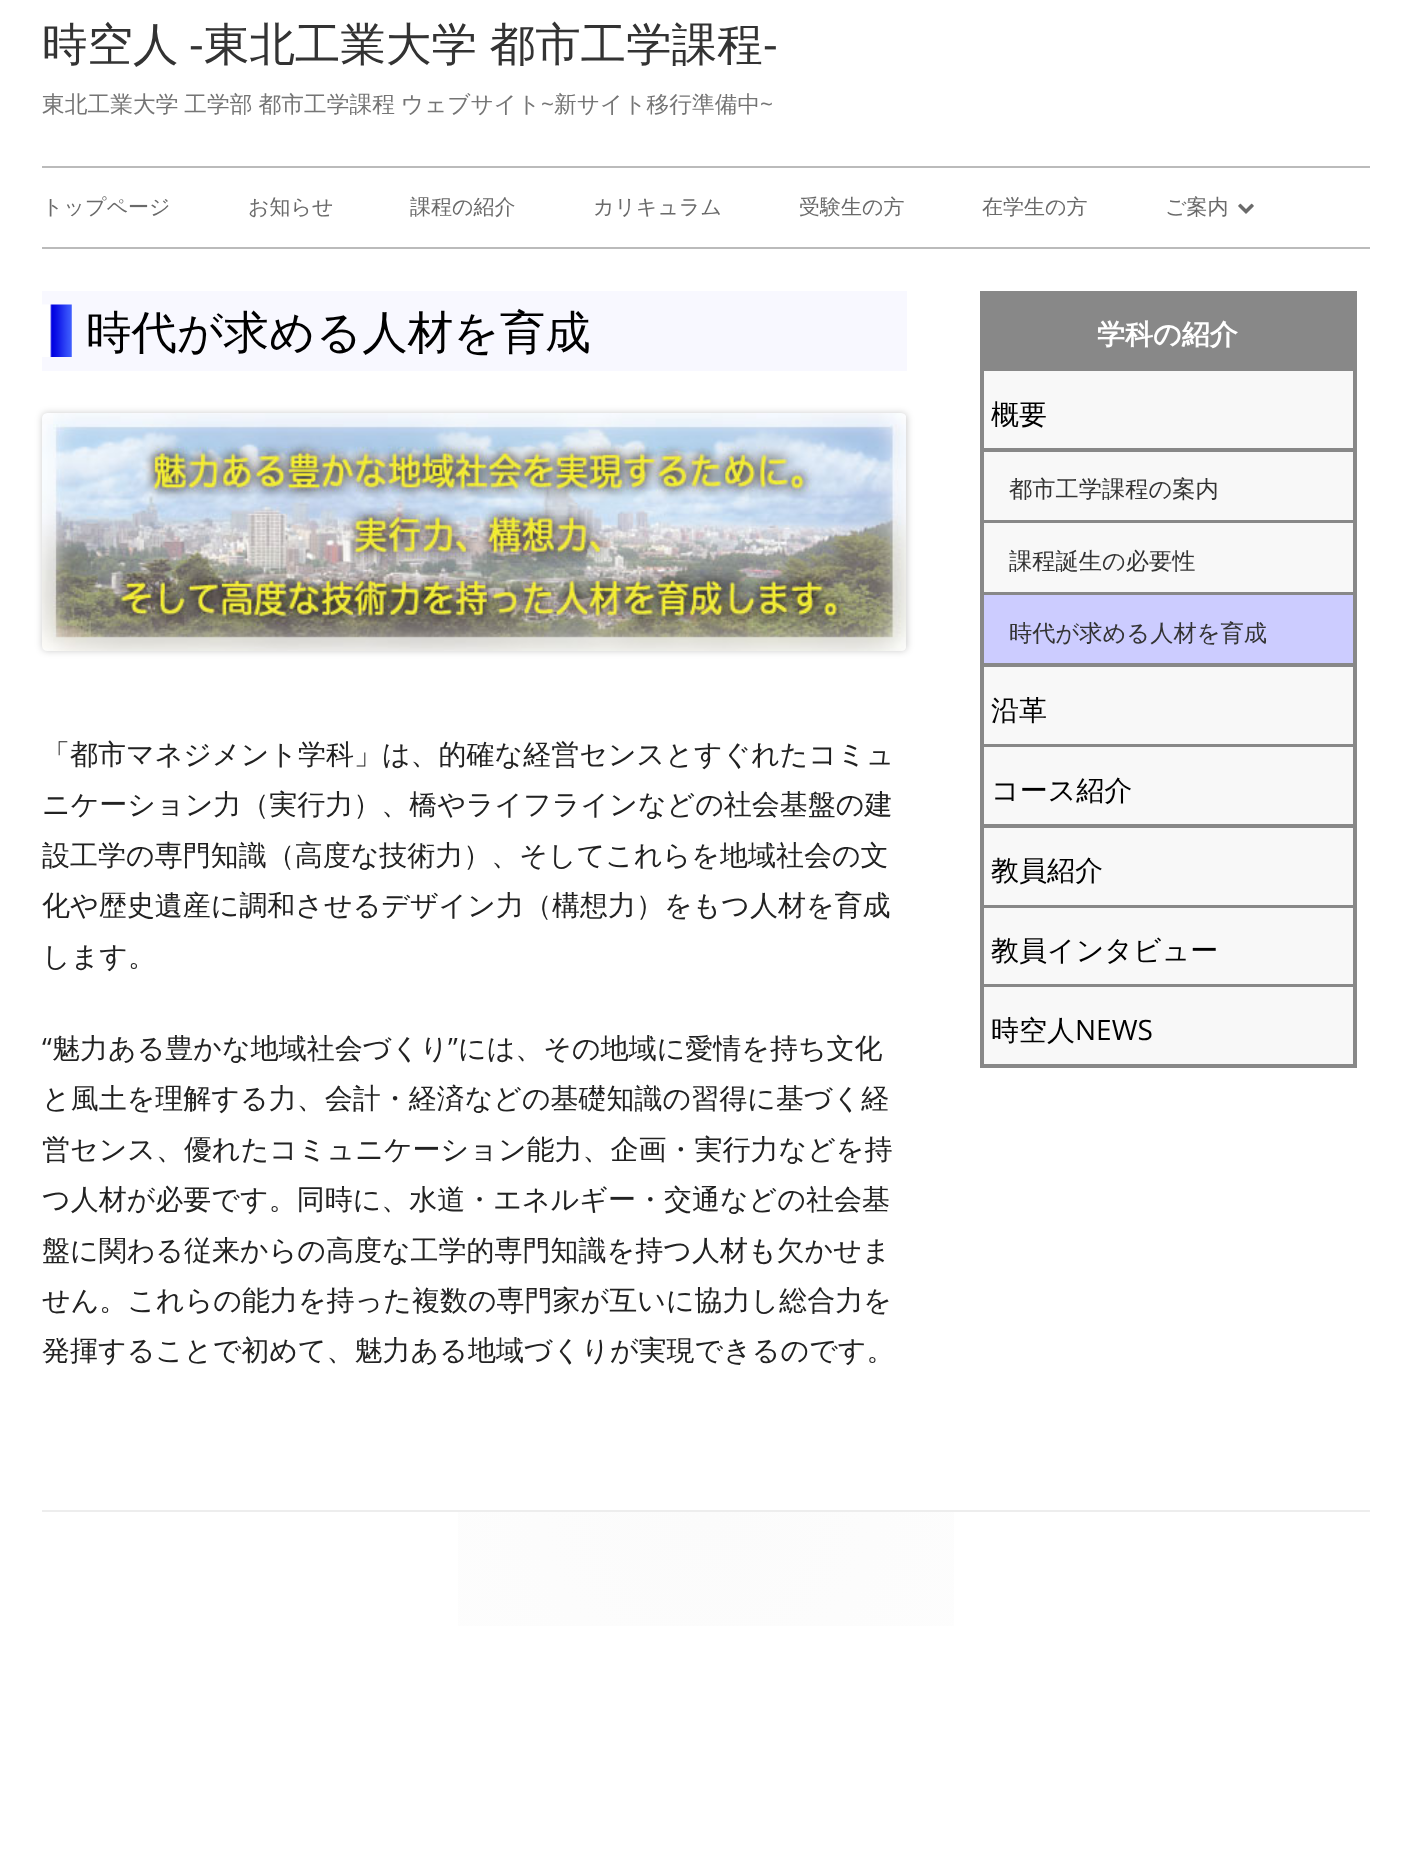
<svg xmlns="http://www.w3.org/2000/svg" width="1412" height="1859">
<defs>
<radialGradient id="g1" gradientUnits="userSpaceOnUse" cx="706" cy="1512" r="664"><stop offset="0" stop-color="#fbfbfb"/><stop offset="1" stop-color="#fff"/></radialGradient>
</defs>
<rect width="100%" height="100%" fill="#fff"/>
<text x="42" y="60" style="font-family:WenQuanYi Zen Hei;font-size:45.5px;font-weight:500;fill:#333">時空人</text>
<text x="189" y="60" style="font-family:Open Sans;font-size:45.5px;fill:#333">-</text>
<text x="204" y="60" word-spacing="-1" style="font-family:WenQuanYi Zen Hei;font-size:45.5px;font-weight:500;fill:#333">東北工業大学 都市工学課程</text>
<text x="763" y="60" style="font-family:Open Sans;font-size:45.5px;fill:#333">-</text>
<text x="42" y="112" word-spacing="-1" style="font-family:WenQuanYi Zen Hei;font-size:22.75px;font-weight:500;fill:#757575">東北工業大学 工学部 都市工学課程 ウェブサイト</text>
<text x="541" y="112" style="font-family:Open Sans;font-size:22.75px;fill:#757575">~</text>
<text x="554" y="112" style="font-family:WenQuanYi Zen Hei;font-size:22.75px;font-weight:500;fill:#757575">新サイト移行準備中</text>
<text x="760" y="112" style="font-family:Open Sans;font-size:22.75px;fill:#757575">~</text>
<rect x="42" y="166" width="1328" height="2" fill="#bbb"/>
<rect x="42" y="247" width="1328" height="2" fill="#bbb"/>
<text x="42" y="214" style="font-family:WenQuanYi Zen Hei;font-size:21px;font-weight:500;fill:#6a6a6a">トップページ</text>
<text x="248" y="214" style="font-family:WenQuanYi Zen Hei;font-size:21px;font-weight:500;fill:#6a6a6a">お知らせ</text>
<text x="410" y="214" style="font-family:WenQuanYi Zen Hei;font-size:21px;font-weight:500;fill:#6a6a6a">課程の紹介</text>
<text x="593" y="214" style="font-family:WenQuanYi Zen Hei;font-size:21px;font-weight:500;fill:#6a6a6a">カリキュラム</text>
<text x="799" y="214" style="font-family:WenQuanYi Zen Hei;font-size:21px;font-weight:500;fill:#6a6a6a">受験生の方</text>
<text x="982" y="214" style="font-family:WenQuanYi Zen Hei;font-size:21px;font-weight:500;fill:#6a6a6a">在学生の方</text>
<text x="1165" y="214" style="font-family:WenQuanYi Zen Hei;font-size:21px;font-weight:500;fill:#6a6a6a">ご案内</text>
<image x="1238" y="203" width="16" height="11" href="media/1.png"/>
<rect x="42" y="291" width="865" height="80" fill="#f8f8ff"/>
<image x="42" y="304" width="30" height="53" href="media/2.png"/>
<text x="86" y="348" style="font-family:WenQuanYi Zen Hei;font-size:45.5px;font-weight:500;fill:#000">時代が求める人材を育成</text>
<rect x="42" y="413" width="865" height="238" rx="5" fill="#00000033" filter="blur(3.5px)"/>
<image x="42" y="413" width="864" height="238" href="media/3.png"/>
<text x="42" y="764" style="font-family:WenQuanYi Zen Hei;font-size:28px;font-weight:500;fill:#222">「都市マネジメント学科」は、的確な経営センスとすぐれたコミュ</text>
<text x="42" y="814" style="font-family:WenQuanYi Zen Hei;font-size:28px;font-weight:500;fill:#222">ニケーション力（実行力）、橋やライフラインなどの社会基盤の建</text>
<text x="42" y="865" style="font-family:WenQuanYi Zen Hei;font-size:28px;font-weight:500;fill:#222">設工学の専門知識（高度な技術力）、そしてこれらを地域社会の文</text>
<text x="42" y="915" style="font-family:WenQuanYi Zen Hei;font-size:28px;font-weight:500;fill:#222">化や歴史遺産に調和させるデザイン力（構想力）をもつ人材を育成</text>
<text x="42" y="966" style="font-family:WenQuanYi Zen Hei;font-size:28px;font-weight:500;fill:#222">します。</text>
<text x="42" y="1058" style="font-family:Open Sans;font-size:28px;fill:#222">“</text>
<text x="52" y="1058" style="font-family:WenQuanYi Zen Hei;font-size:28px;font-weight:500;fill:#222">魅力ある豊かな地域社会づくり</text>
<text x="448" y="1058" style="font-family:Open Sans;font-size:28px;fill:#222">”</text>
<text x="458" y="1058" style="font-family:WenQuanYi Zen Hei;font-size:28px;font-weight:500;fill:#222">には、その地域に愛情を持ち文化</text>
<text x="42" y="1108" style="font-family:WenQuanYi Zen Hei;font-size:28px;font-weight:500;fill:#222">と風土を理解する力、会計・経済などの基礎知識の習得に基づく経</text>
<text x="42" y="1159" style="font-family:WenQuanYi Zen Hei;font-size:28px;font-weight:500;fill:#222">営センス、優れたコミュニケーション能力、企画・実行力などを持</text>
<text x="42" y="1209" style="font-family:WenQuanYi Zen Hei;font-size:28px;font-weight:500;fill:#222">つ人材が必要です。同時に、水道・エネルギー・交通などの社会基</text>
<text x="42" y="1260" style="font-family:WenQuanYi Zen Hei;font-size:28px;font-weight:500;fill:#222">盤に関わる従来からの高度な工学的専門知識を持つ人材も欠かせま</text>
<text x="42" y="1310" style="font-family:WenQuanYi Zen Hei;font-size:28px;font-weight:500;fill:#222">せん。これらの能力を持った複数の専門家が互いに協力し総合力を</text>
<text x="42" y="1360" style="font-family:WenQuanYi Zen Hei;font-size:28px;font-weight:500;fill:#222">発揮することで初めて、魅力ある地域づくりが実現できるのです。</text>
<rect x="984" y="293" width="369" height="75" fill="#888"/>
<rect x="980" y="291" width="376" height="2" fill="#888"/>
<rect x="1353" y="291" width="4" height="777" fill="#888"/>
<rect x="980" y="368" width="376" height="3" fill="#888"/>
<rect x="980" y="291" width="4" height="80" fill="#888"/>
<text x="1097" y="344" style="font-family:WenQuanYi Zen Hei;font-size:28px;font-weight:bold;fill:#fff">学科の紹介</text>
<rect x="984" y="371" width="369" height="77" fill="#f8f8f8"/>
<rect x="980" y="448" width="376" height="4" fill="#888"/>
<rect x="980" y="371" width="4" height="81" fill="#888"/>
<text x="991" y="424" style="font-family:WenQuanYi Zen Hei;font-size:28px;font-weight:500;fill:#000">概要</text>
<rect x="984" y="452" width="369" height="68" fill="#f8f8f8"/>
<rect x="980" y="520" width="376" height="3" fill="#888"/>
<rect x="980" y="452" width="4" height="71" fill="#888"/>
<text x="1009" y="497" style="font-family:WenQuanYi Zen Hei;font-size:23.25px;font-weight:500;fill:#333">都市工学課程の案内</text>
<rect x="984" y="523" width="369" height="69" fill="#f8f8f8"/>
<rect x="980" y="592" width="376" height="3" fill="#888"/>
<rect x="980" y="523" width="4" height="72" fill="#888"/>
<text x="1009" y="569" style="font-family:WenQuanYi Zen Hei;font-size:23.25px;font-weight:500;fill:#333">課程誕生の必要性</text>
<rect x="984" y="595" width="369" height="68" fill="#ccf"/>
<rect x="980" y="663" width="376" height="4" fill="#888"/>
<rect x="980" y="595" width="4" height="72" fill="#888"/>
<text x="1009" y="641" style="font-family:WenQuanYi Zen Hei;font-size:23.25px;font-weight:500;fill:#333">時代が求める人材を育成</text>
<rect x="984" y="667" width="369" height="77" fill="#f8f8f8"/>
<rect x="980" y="744" width="376" height="3" fill="#888"/>
<rect x="980" y="667" width="4" height="80" fill="#888"/>
<text x="991" y="720" style="font-family:WenQuanYi Zen Hei;font-size:28px;font-weight:500;fill:#000">沿革</text>
<rect x="984" y="747" width="369" height="77" fill="#f8f8f8"/>
<rect x="980" y="824" width="376" height="4" fill="#888"/>
<rect x="980" y="747" width="4" height="81" fill="#888"/>
<text x="991" y="800" style="font-family:WenQuanYi Zen Hei;font-size:28px;font-weight:500;fill:#000">コース紹介</text>
<rect x="984" y="828" width="369" height="77" fill="#f8f8f8"/>
<rect x="980" y="905" width="376" height="3" fill="#888"/>
<rect x="980" y="828" width="4" height="80" fill="#888"/>
<text x="991" y="880" style="font-family:WenQuanYi Zen Hei;font-size:28px;font-weight:500;fill:#000">教員紹介</text>
<rect x="984" y="908" width="369" height="76" fill="#f8f8f8"/>
<rect x="980" y="984" width="376" height="3" fill="#888"/>
<rect x="980" y="908" width="4" height="79" fill="#888"/>
<text x="991" y="960" style="font-family:WenQuanYi Zen Hei;font-size:28px;font-weight:500;fill:#000">教員インタビュー</text>
<rect x="984" y="987" width="369" height="77" fill="#f8f8f8"/>
<rect x="980" y="1064" width="376" height="4" fill="#888"/>
<rect x="980" y="987" width="4" height="81" fill="#888"/>
<text x="991" y="1040" style="font-family:WenQuanYi Zen Hei;font-size:28px;font-weight:500;fill:#000">時空人</text>
<text x="1075" y="1040" style="font-family:Open Sans;font-size:28px;fill:#000">NEWS</text>
<rect x="458" y="1512" width="496" height="114" fill="url(#g1)"/>
<rect x="42" y="1510" width="1328" height="2" fill="#ededed"/>
</svg>
